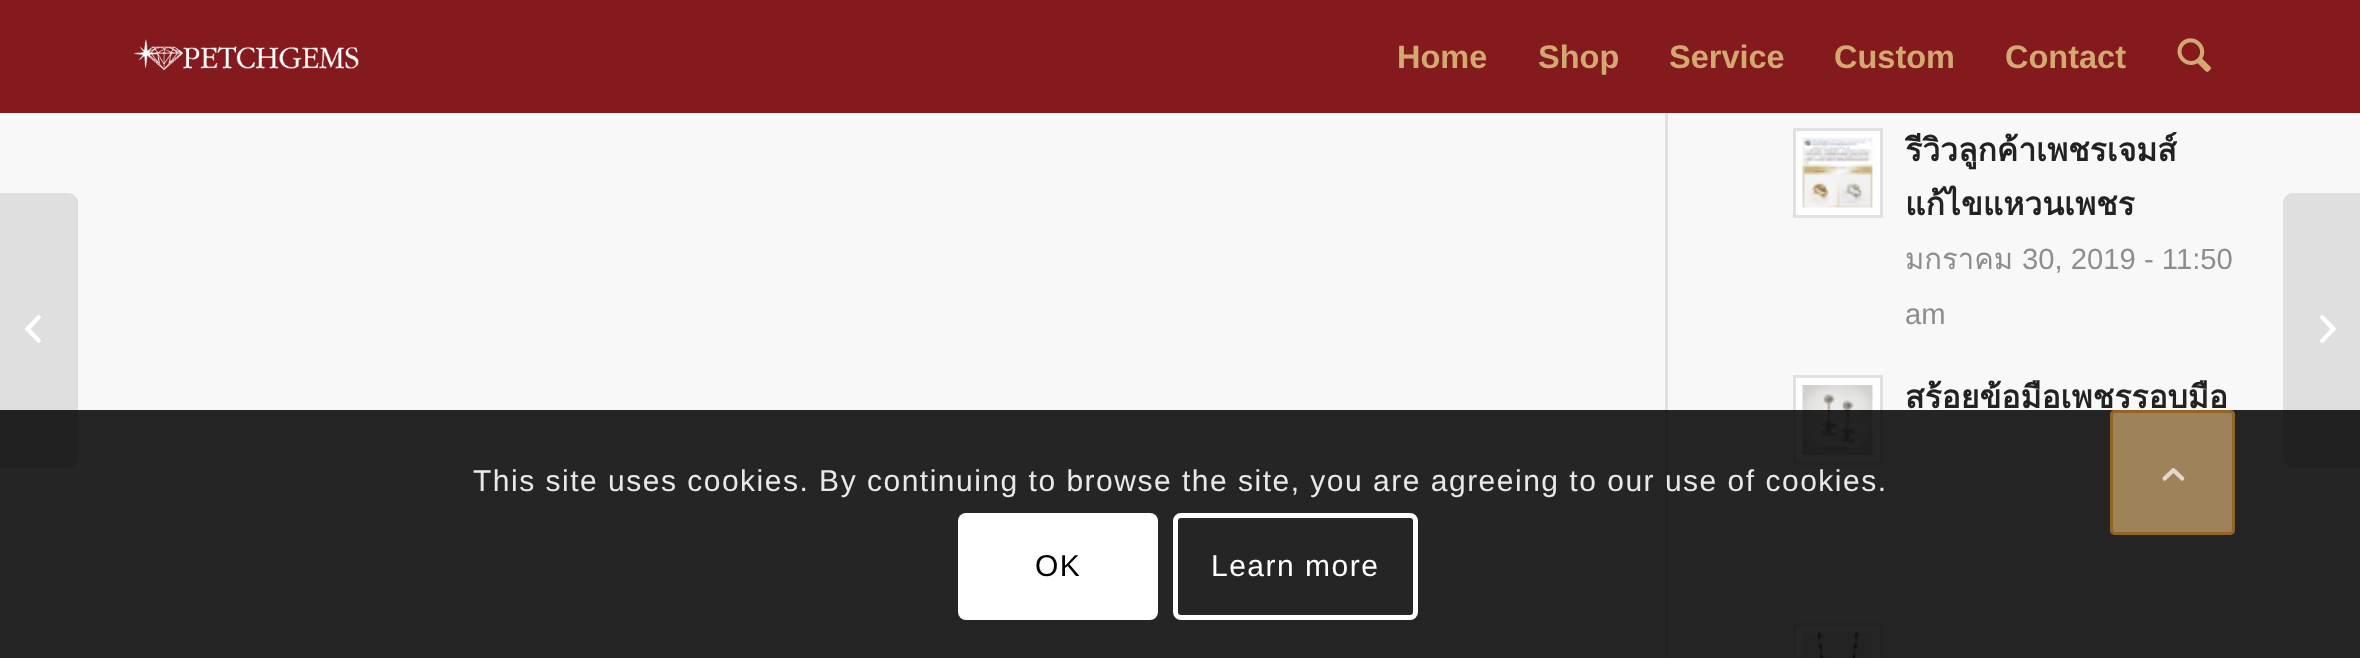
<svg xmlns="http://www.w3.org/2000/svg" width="2360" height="658">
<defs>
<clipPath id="clip1"><rect x="1905" y="123" width="330" height="217"/></clipPath>
</defs>
<rect width="100%" height="100%" fill="#f8f8f8"/>
<rect width="2360" height="113" fill="#841a1d"/>
<image x="134" y="39" width="225" height="32" href="media/1.png"/>
<text x="1397" y="68" style="font-family:Liberation Sans;font-size:32.5px;font-weight:bold;fill:#d2aa71">Home</text>
<text x="1538" y="68" style="font-family:Liberation Sans;font-size:32.5px;font-weight:bold;fill:#d2aa71">Shop</text>
<text x="1669" y="68" style="font-family:Liberation Sans;font-size:32.5px;font-weight:bold;fill:#d2aa71">Service</text>
<text x="1834" y="68" style="font-family:Liberation Sans;font-size:32.5px;font-weight:bold;fill:#d2aa71">Custom</text>
<text x="2005" y="68" style="font-family:Liberation Sans;font-size:32.5px;font-weight:bold;fill:#d2aa71">Contact</text>
<image x="2177" y="38" width="34" height="34" href="media/2.png"/>
<path d="M0 193h68c5.5 0 10 4.5 10 10v255c0 5.5-4.5 10-10 10h-68z" fill="#dfdfdf"/>
<image x="25" y="315" width="16" height="28" href="media/3.png"/>
<rect x="1665" y="113" width="3" height="545" fill="#e1e1e1"/>
<rect x="1794.5" y="129.5" width="87" height="87" fill="#fff" stroke="#e1e1e1" stroke-width="3"/>
<image x="1802" y="137" width="71" height="71" href="media/4.png"/>
<g clip-path="url(#clip1)">
<text x="1905" y="161" style="font-family:Loma;font-size:31.9px;font-weight:bold;fill:#222">รีวิวลูกค้าเพชรเจมส์</text>
</g>
<text x="1905" y="215" style="font-family:Loma;font-size:31.9px;font-weight:bold;fill:#222">แก้ไขแหวนเพชร</text>
<text x="1905" y="269" style="font-family:Loma;font-size:29.25px;fill:#8d8d8d">มกราคม</text>
<text x="2022" y="269" style="font-family:Liberation Sans;font-size:29.25px;fill:#8d8d8d">30, 2019 - 11:50</text>
<text x="1905" y="324" style="font-family:Liberation Sans;font-size:29.25px;fill:#8d8d8d">am</text>
<rect x="1794.5" y="376.5" width="87" height="87" fill="#fff" stroke="#e1e1e1" stroke-width="3"/>
<image x="1802" y="385" width="71" height="70" href="media/5.png"/>
<text x="1905" y="408" style="font-family:Loma;font-size:31.9px;font-weight:bold;fill:#222">สร้อยข้อมือเพชรรอบมือ</text>
<rect x="1794.5" y="624.5" width="87" height="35" fill="#fff" stroke="#e1e1e1" stroke-width="3"/>
<image x="1802" y="632" width="71" height="26" href="media/6.png"/>
<path d="M2293 193h67v275h-67c-5.5 0-10-4.5-10-10v-255c0-5.5 4.5-10 10-10z" fill="#dfdfdf"/>
<image x="2320" y="315" width="16" height="28" href="media/7.png"/>
<rect y="410" width="2360" height="248" fill="#000000d9"/>
<text x="473" y="491" style="font-family:Liberation Sans;font-size:30px;letter-spacing:1.5px;fill:#e9e9e9">This site uses cookies. By continuing to browse the site, you are agreeing to our use of cookies.</text>
<rect x="958" y="513" width="200" height="107" rx="8" fill="#fff"/>
<text x="1035" y="576" style="font-family:Liberation Sans;font-size:30px;letter-spacing:1.5px;fill:#000">OK</text>
<rect x="1175.5" y="515.5" width="240" height="102" rx="5.5" fill="none" stroke="#fff" stroke-width="5"/>
<text x="1211" y="576" style="font-family:Liberation Sans;font-size:30px;letter-spacing:1.5px;fill:#fff">Learn more</text>
<rect x="2110" y="410" width="125" height="125" rx="5" fill="#d2aa71b3"/>
<rect x="2111.5" y="411.5" width="122" height="122" rx="3.5" fill="none" stroke="#8f590eb3" stroke-width="3"/>
<image x="2162" y="468" width="23" height="13" href="media/8.png"/>
</svg>
